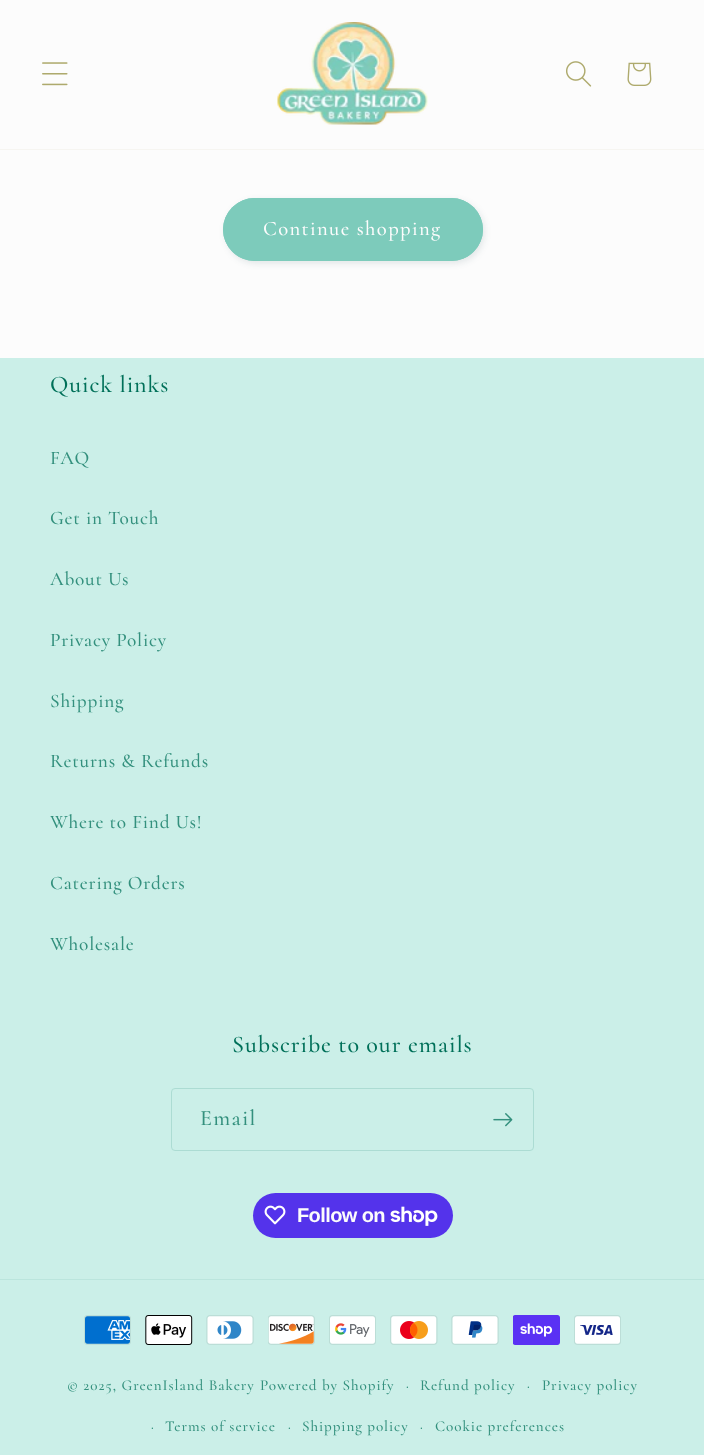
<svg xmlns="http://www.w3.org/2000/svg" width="704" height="1455">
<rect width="100%" height="100%" fill="#fcfcfc"/>
<rect y="149" width="704" height="1" fill="#f6f5f1"/>
<image x="42" y="62" width="26" height="24" href="media/1.png"/>
<image x="277" y="22" width="151" height="103" href="media/2.png"/>
<image x="566" y="61" width="26" height="26" href="media/3.png"/>
<image x="627" y="62" width="25" height="24" href="media/4.png"/>
<rect x="225" y="200" width="260" height="64" rx="32" fill="#1039481a" filter="blur(3px)"/>
<rect x="223" y="198" width="260" height="63" rx="31.5" fill="#7dcbbb"/>
<rect x="223.5" y="198.5" width="259" height="62" rx="31" fill="none" stroke="#7dcbbb"/>
<text x="263" y="235" style="font-family:Cormorant;font-size:20.6px;font-weight:500;letter-spacing:1.4px;fill:#fcfcfc">Continue shopping</text>
<rect y="358" width="704" height="1097" fill="#cbefe8"/>
<text x="50" y="392" style="font-family:Cormorant;font-size:24px;font-weight:500;letter-spacing:0.9px;fill:#007059">Quick links</text>
<text x="50" y="464" style="font-family:Cormorant;font-size:19.25px;font-weight:500;letter-spacing:0.8px;fill:#33907d">FAQ</text>
<text x="50" y="524" style="font-family:Cormorant;font-size:19.25px;font-weight:500;letter-spacing:0.8px;fill:#33907d">Get in Touch</text>
<text x="50" y="585" style="font-family:Cormorant;font-size:19.25px;font-weight:500;letter-spacing:0.8px;fill:#33907d">About Us</text>
<text x="50" y="646" style="font-family:Cormorant;font-size:19.25px;font-weight:500;letter-spacing:0.8px;fill:#33907d">Privacy Policy</text>
<text x="50" y="707" style="font-family:Cormorant;font-size:19.25px;font-weight:500;letter-spacing:0.8px;fill:#33907d">Shipping</text>
<text x="50" y="767" style="font-family:Cormorant;font-size:19.25px;font-weight:500;letter-spacing:0.8px;fill:#33907d">Returns &amp; Refunds</text>
<text x="50" y="828" style="font-family:Cormorant;font-size:19.25px;font-weight:500;letter-spacing:0.8px;fill:#33907d">Where to Find Us!</text>
<text x="50" y="889" style="font-family:Cormorant;font-size:19.25px;font-weight:500;letter-spacing:0.8px;fill:#33907d">Catering Orders</text>
<text x="50" y="950" style="font-family:Cormorant;font-size:19.25px;font-weight:500;letter-spacing:0.8px;fill:#33907d">Wholesale</text>
<text x="232" y="1052" style="font-family:Cormorant;font-size:24px;font-weight:500;letter-spacing:0.9px;fill:#007059">Subscribe to our emails</text>
<rect x="171.5" y="1088.5" width="362" height="62" rx="3.5" fill="none" stroke="#acdcd3"/>
<text x="200" y="1125" style="font-family:Cormorant;font-size:22px;font-weight:500;letter-spacing:1.4px;fill:#33907d">Email</text>
<image x="493" y="1113" width="20" height="14" href="media/5.png"/>
<rect x="253" y="1193" width="200" height="45" rx="22.5" fill="#5433eb"/>
<image x="264" y="1205" width="22" height="20" href="media/6.png"/>
<text x="297" y="1222" style="font-family:Liberation Sans;font-size:20px;font-weight:bold;letter-spacing:-0.6px;fill:#fcfcfc">Follow on</text>
<image x="390" y="1206" width="48" height="20" href="media/7.png"/>
<rect y="1279" width="704" height="1" fill="#bbe5dd"/>
<image x="84" y="1315" width="47" height="30" href="media/8.png"/>
<image x="145" y="1315" width="48" height="30" href="media/9.png"/>
<image x="206" y="1315" width="48" height="30" href="media/10.png"/>
<image x="268" y="1315" width="47" height="30" href="media/11.png"/>
<image x="329" y="1315" width="47" height="30" href="media/12.png"/>
<image x="390" y="1315" width="48" height="30" href="media/13.png"/>
<image x="451" y="1315" width="48" height="30" href="media/14.png"/>
<image x="513" y="1315" width="47" height="30" href="media/15.png"/>
<image x="574" y="1315" width="47" height="30" href="media/16.png"/>
<text x="67" y="1390" style="font-family:Cormorant;font-size:15.1px;font-weight:500;letter-spacing:0.95px;fill:#33907d">© 2025, GreenIsland Bakery</text>
<text x="406" y="1390" style="font-family:Cormorant;font-size:14px;font-weight:500;letter-spacing:0.95px;fill:#33907d">·</text>
<text x="420" y="1390" style="font-family:Cormorant;font-size:15.1px;font-weight:500;letter-spacing:0.95px;fill:#33907d">Refund policy</text>
<text x="527" y="1390" style="font-family:Cormorant;font-size:14px;font-weight:500;letter-spacing:0.95px;fill:#33907d">·</text>
<text x="542" y="1390" style="font-family:Cormorant;font-size:15.1px;font-weight:500;letter-spacing:0.95px;fill:#33907d">Privacy policy</text>
<text x="151" y="1431" style="font-family:Cormorant;font-size:14px;font-weight:500;letter-spacing:0.95px;fill:#33907d">·</text>
<text x="165" y="1431" style="font-family:Cormorant;font-size:15.1px;font-weight:500;letter-spacing:0.95px;fill:#33907d">Terms of service</text>
<text x="288" y="1431" style="font-family:Cormorant;font-size:14px;font-weight:500;letter-spacing:0.95px;fill:#33907d">·</text>
<text x="302" y="1431" style="font-family:Cormorant;font-size:15.1px;font-weight:500;letter-spacing:0.95px;fill:#33907d">Shipping policy</text>
<text x="420" y="1431" style="font-family:Cormorant;font-size:14px;font-weight:500;letter-spacing:0.95px;fill:#33907d">·</text>
<text x="435" y="1431" style="font-family:Cormorant;font-size:15.1px;font-weight:500;letter-spacing:0.95px;fill:#33907d">Cookie preferences</text>
<text x="260" y="1390" style="font-family:Cormorant;font-size:15.1px;font-weight:500;letter-spacing:0.95px;fill:#33907d">Powered by Shopify</text>
</svg>
